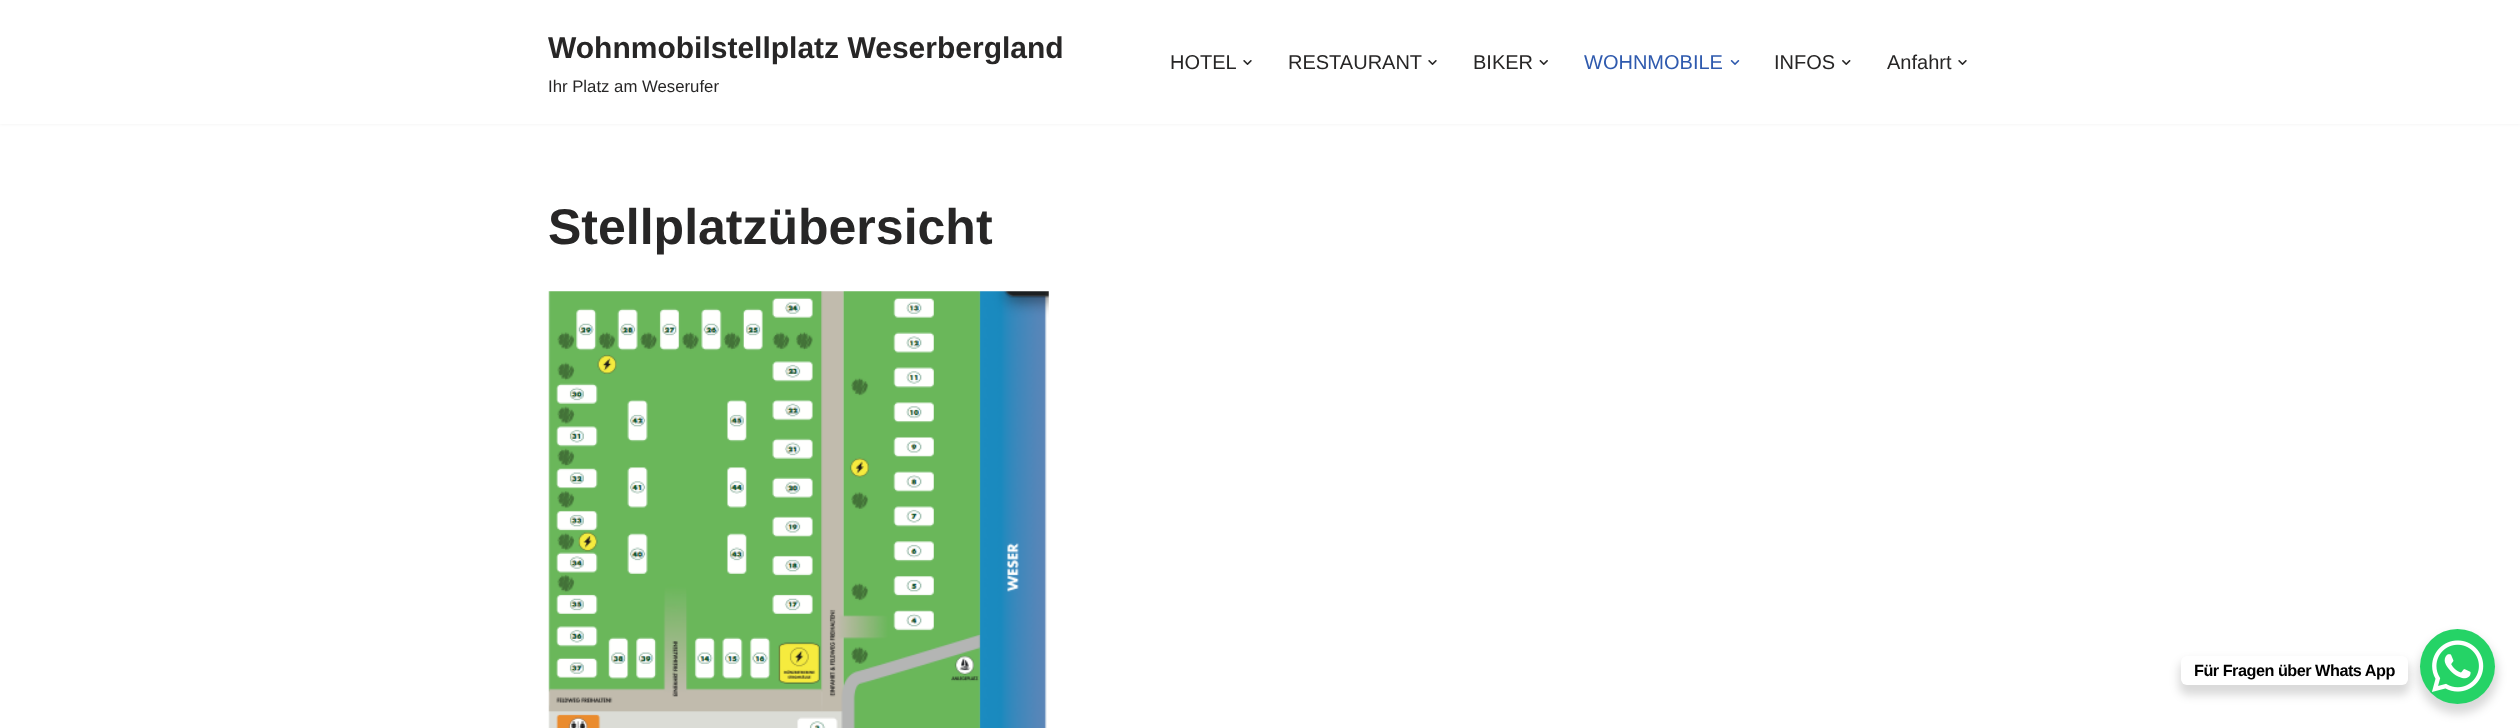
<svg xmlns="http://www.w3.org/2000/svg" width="2520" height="728">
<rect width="100%" height="100%" fill="#fff"/>
<rect y="-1" width="2520" height="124" fill="#0000001a" filter="blur(2px)"/>
<rect width="2520" height="124" fill="#fff"/>
<text x="548" y="58" style="font-family:Liberation Sans;font-size:30px;font-weight:bold;fill:#272626">Wohnmobilstellplatz Weserbergland</text>
<text x="548" y="92" style="font-family:Liberation Sans;font-size:16.75px;fill:#272626">Ihr Platz am Weserufer</text>
<text x="1170" y="69" style="font-family:Liberation Sans;font-size:20px;fill:#272626">HOTEL</text>
<image x="1243" y="60" width="9" height="5" href="media/1.png"/>
<text x="1288" y="69" style="font-family:Liberation Sans;font-size:20px;fill:#272626">RESTAURANT</text>
<image x="1428" y="60" width="9" height="5" href="media/1.png"/>
<text x="1473" y="69" style="font-family:Liberation Sans;font-size:20px;fill:#272626">BIKER</text>
<image x="1539" y="60" width="9" height="5" href="media/2.png"/>
<text x="1584" y="69" style="font-family:Liberation Sans;font-size:20px;fill:#2f5aae">WOHNMOBILE</text>
<image x="1730" y="60" width="10" height="5" href="media/3.png"/>
<text x="1774" y="69" style="font-family:Liberation Sans;font-size:20px;fill:#272626">INFOS</text>
<image x="1842" y="60" width="9" height="5" href="media/4.png"/>
<text x="1887" y="69" style="font-family:Liberation Sans;font-size:20px;fill:#272626">Anfahrt</text>
<image x="1958" y="60" width="9" height="5" href="media/1.png"/>
<text x="548" y="244" style="font-family:Liberation Sans;font-size:50px;font-weight:bold;fill:#272626">Stellplatzübersicht</text>
<image x="548" y="291" width="501" height="437" href="media/5.png"/>
<rect x="2418" y="634" width="80" height="80" rx="40" fill="#00000026" filter="blur(5px)"/>
<circle cx="2457.5" cy="666.5" r="37.5" fill="#25d366"/>
<rect x="2179" y="661" width="231" height="34" rx="9" fill="#00000026" filter="blur(5px)"/>
<rect x="2181" y="656" width="227" height="29" rx="6" fill="#fff"/>
<text x="2194" y="676" style="font-family:Liberation Sans;font-size:16.25px;font-weight:bold;letter-spacing:-0.5px;fill:#000">Für Fragen über Whats App</text>
<image x="2432" y="640" width="52" height="52" href="media/6.png"/>
</svg>
